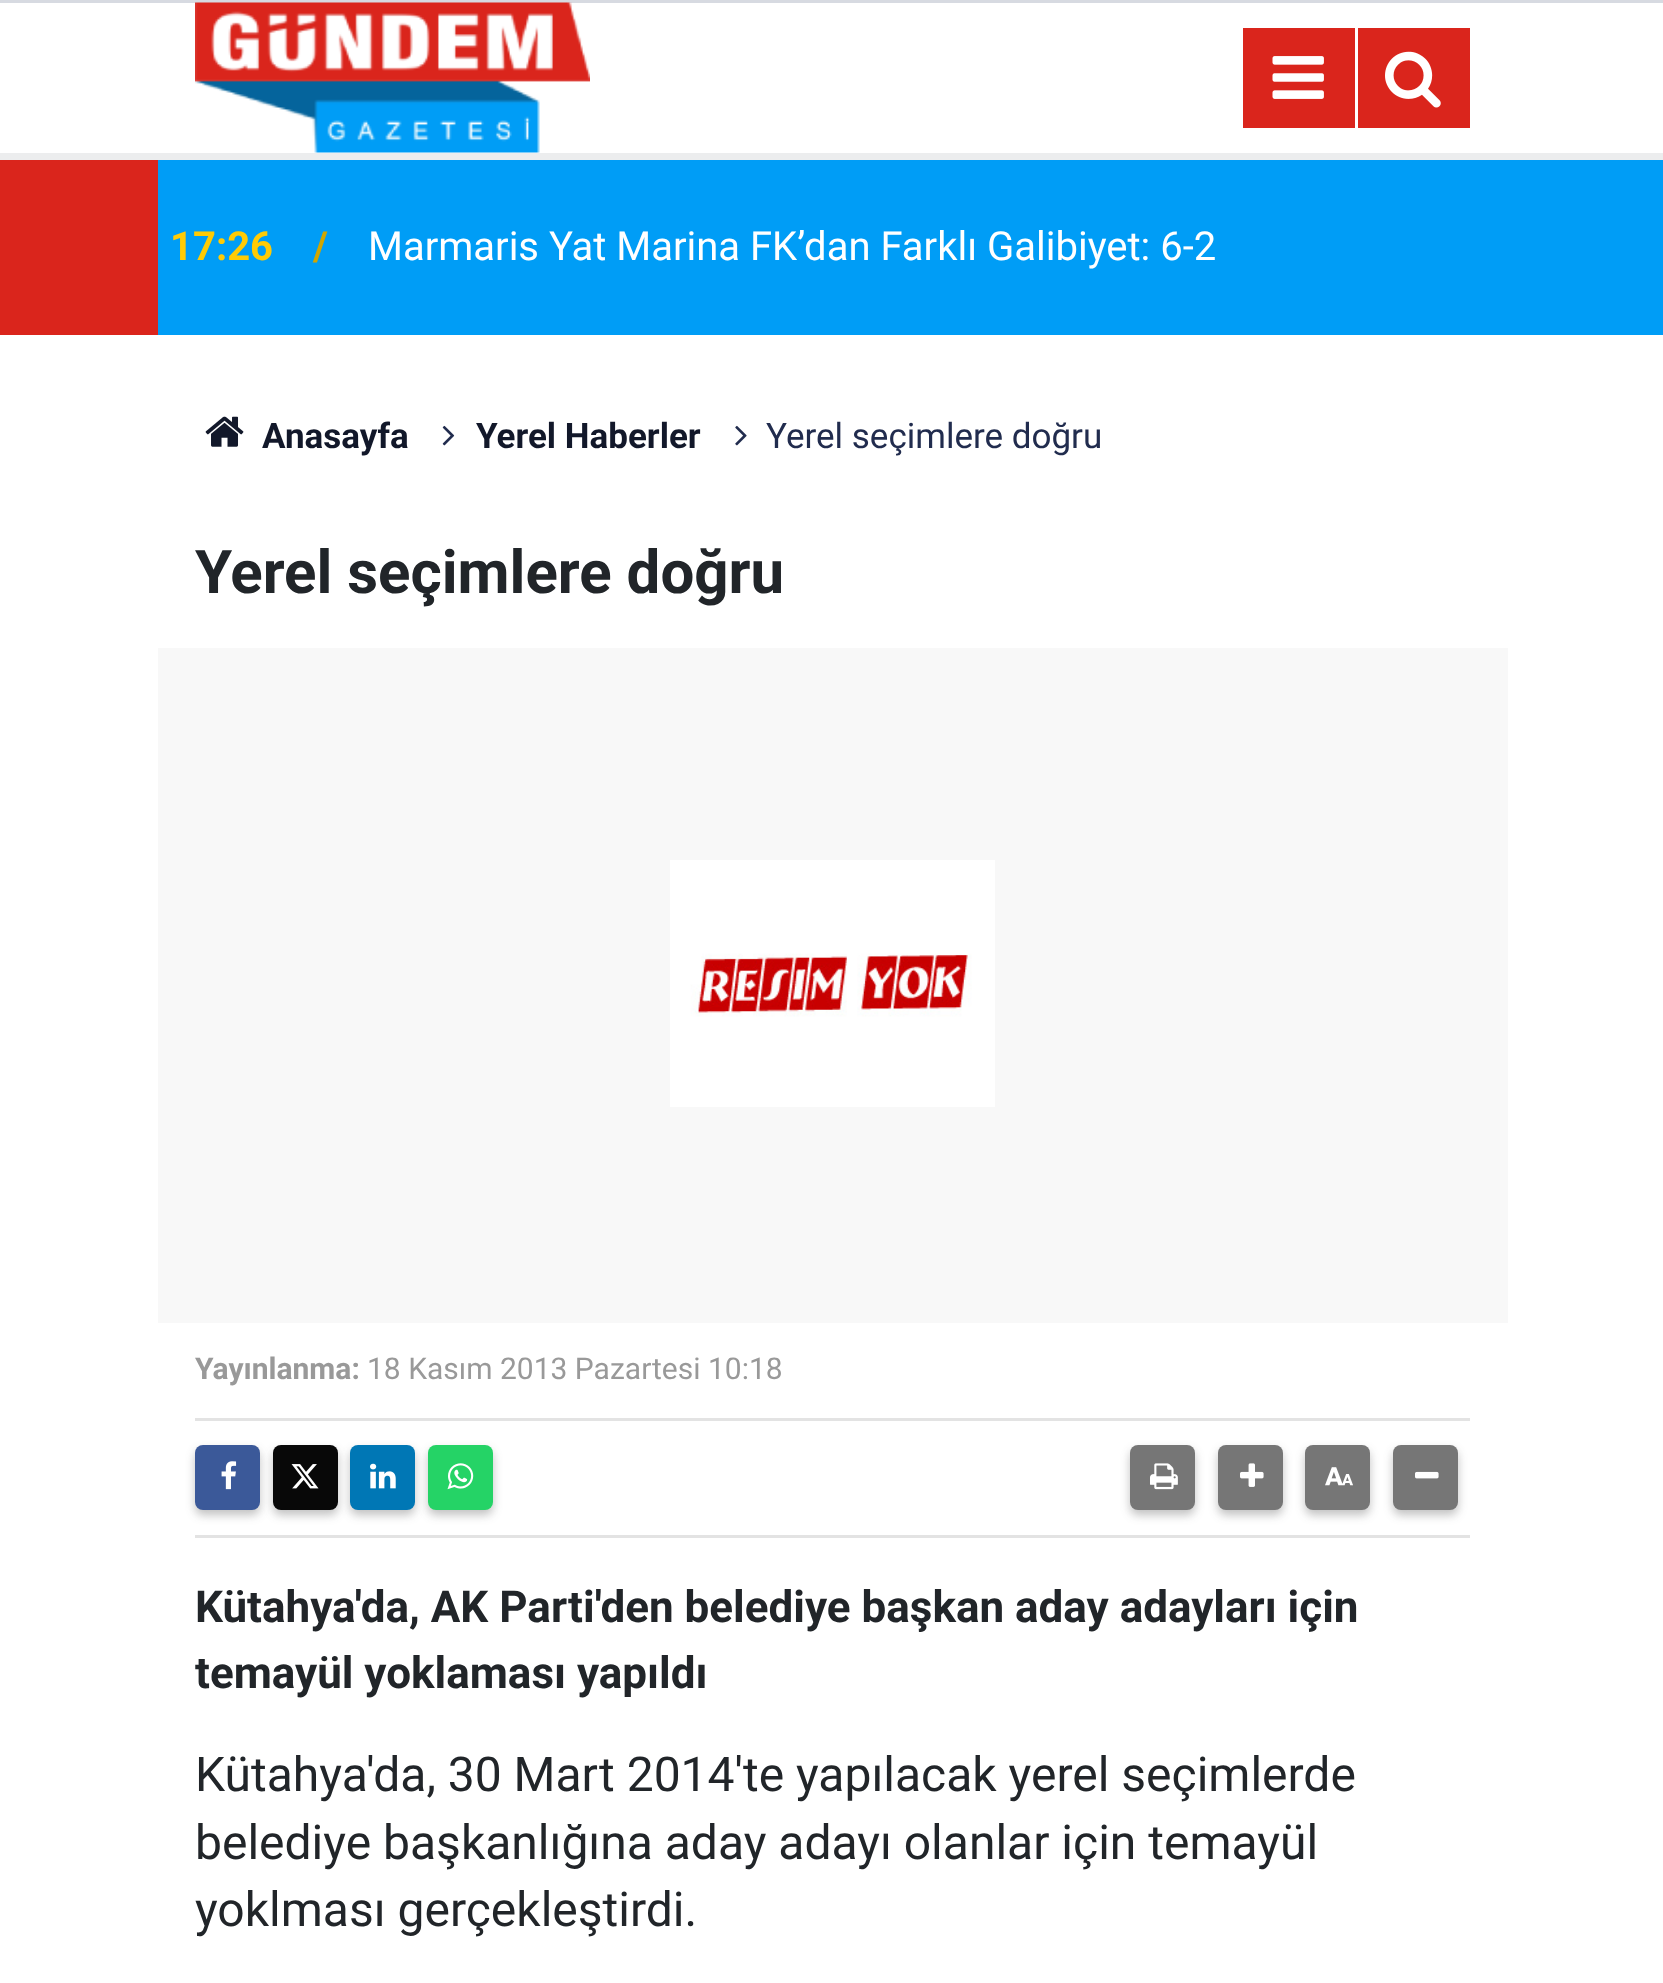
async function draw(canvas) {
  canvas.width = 1663
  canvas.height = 1983
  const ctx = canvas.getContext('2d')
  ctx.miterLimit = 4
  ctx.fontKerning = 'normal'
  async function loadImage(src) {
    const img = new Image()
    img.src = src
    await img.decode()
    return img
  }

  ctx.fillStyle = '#fff'
  ctx.fillRect(0, 0, 1663, 1983)
  ctx.fillStyle = '#d7dae1'
  ctx.fillRect(0, 0, 1663, 3)
  ctx.fillStyle = '#ecedee'
  ctx.fillRect(0, 153, 1663, 7)
  ctx.drawImage(await loadImage('image0.png'), 195, 2, 395, 151)
  ctx.fillStyle = '#da251c'
  ctx.fillRect(1243, 28, 112, 100)
  ctx.drawImage(await loadImage('image1.png'), 1272, 56, 52, 43)
  ctx.fillRect(1358, 28, 112, 100)
  ctx.drawImage(await loadImage('image2.png'), 1385, 51, 56, 57)
  ctx.fillRect(0, 160, 158, 175)
  ctx.fillStyle = '#009df6'
  ctx.fillRect(158, 160, 1505, 175)
  ctx.font = 'bold 40px Roboto'
  ctx.fillStyle = '#ffcb05'
  ctx.fillText('17:26', 170, 260)
  ctx.fillStyle = '#d1a600'
  ctx.fillText('/', 313, 260)
  ctx.font = '40px Roboto'
  ctx.fillStyle = '#fff'
  ctx.fillText('Marmaris Yat Marina FK’dan Farklı Galibiyet: 6-2', 368, 260)
  ctx.drawImage(await loadImage('image3.png'), 205, 416, 39, 31)
  ctx.font = 'bold 35px Roboto'
  ctx.fillStyle = '#12182a'
  ctx.fillText('Anasayfa', 262, 448)
  ctx.drawImage(await loadImage('image4.png'), 442, 425, 13, 21)
  ctx.fillText('Yerel Haberler', 476, 448)
  ctx.drawImage(await loadImage('image5.png'), 735, 425, 12, 21)
  ctx.font = '35px Roboto'
  ctx.fillStyle = '#212c4e'
  ctx.fillText('Yerel seçimlere doğru', 766, 448)
  ctx.font = 'bold 60px Roboto'
  ctx.fillStyle = '#212529'
  ctx.fillText('Yerel seçimlere doğru', 195, 593)
  ctx.fillStyle = '#f8f8f8'
  ctx.fillRect(158, 648, 1350, 675)
  ctx.drawImage(await loadImage('image6.png'), 670, 860, 325, 247)
  ctx.font = 'bold 30px Roboto'
  ctx.fillStyle = '#999'
  ctx.fillText('Yayınlanma:', 195, 1379)
  ctx.font = '30px Roboto'
  ctx.fillText('18 Kasım 2013 Pazartesi 10:18', 367, 1379)
  ctx.fillStyle = '#e3e3e3'
  ctx.fillRect(195, 1418, 1275, 3)
  ctx.fillRect(195, 1535, 1275, 3)
  ctx.fillStyle = '#3232324d'
  ctx.filter = 'blur(5px)'
  ctx.beginPath()
  ctx.roundRect(195, 1450, 65, 65, 8)
  ctx.fill()
  ctx.filter = 'none'
  ctx.fillStyle = '#3b5999'
  ctx.beginPath()
  ctx.roundRect(195, 1445, 65, 65, 8)
  ctx.fill()
  ctx.drawImage(await loadImage('image7.png'), 221, 1461, 16, 29)
  ctx.fillStyle = '#3232324d'
  ctx.filter = 'blur(5px)'
  ctx.beginPath()
  ctx.roundRect(273, 1450, 65, 65, 8)
  ctx.fill()
  ctx.filter = 'none'
  ctx.fillStyle = '#080808'
  ctx.beginPath()
  ctx.roundRect(273, 1445, 65, 65, 8)
  ctx.fill()
  ctx.drawImage(await loadImage('image8.png'), 291, 1464, 28, 25)
  ctx.fillStyle = '#3232324d'
  ctx.filter = 'blur(5px)'
  ctx.beginPath()
  ctx.roundRect(350, 1450, 65, 65, 8)
  ctx.fill()
  ctx.filter = 'none'
  ctx.fillStyle = '#0077b5'
  ctx.beginPath()
  ctx.roundRect(350, 1445, 65, 65, 8)
  ctx.fill()
  ctx.drawImage(await loadImage('image9.png'), 370, 1463, 26, 26)
  ctx.fillStyle = '#3232324d'
  ctx.filter = 'blur(5px)'
  ctx.beginPath()
  ctx.roundRect(428, 1450, 65, 65, 8)
  ctx.fill()
  ctx.filter = 'none'
  ctx.fillStyle = '#25d366'
  ctx.beginPath()
  ctx.roundRect(428, 1445, 65, 65, 8)
  ctx.fill()
  ctx.drawImage(await loadImage('image10.png'), 447, 1463, 27, 27)
  ctx.fillStyle = '#3232324d'
  ctx.filter = 'blur(5px)'
  ctx.beginPath()
  ctx.roundRect(1130, 1450, 65, 65, 8)
  ctx.fill()
  ctx.filter = 'none'
  ctx.fillStyle = '#767676'
  ctx.beginPath()
  ctx.roundRect(1130, 1445, 65, 65, 8)
  ctx.fill()
  ctx.drawImage(await loadImage('image11.png'), 1150, 1463, 28, 27)
  ctx.fillStyle = '#3232324d'
  ctx.filter = 'blur(5px)'
  ctx.beginPath()
  ctx.roundRect(1218, 1450, 65, 65, 8)
  ctx.fill()
  ctx.filter = 'none'
  ctx.fillStyle = '#767676'
  ctx.beginPath()
  ctx.roundRect(1218, 1445, 65, 65, 8)
  ctx.fill()
  ctx.drawImage(await loadImage('image12.png'), 1240, 1463, 24, 24)
  ctx.fillStyle = '#3232324d'
  ctx.filter = 'blur(5px)'
  ctx.beginPath()
  ctx.roundRect(1305, 1450, 65, 65, 8)
  ctx.fill()
  ctx.filter = 'none'
  ctx.fillStyle = '#767676'
  ctx.beginPath()
  ctx.roundRect(1305, 1445, 65, 65, 8)
  ctx.fill()
  ctx.drawImage(await loadImage('image13.png'), 1325, 1467, 28, 19)
  ctx.fillStyle = '#3232324d'
  ctx.filter = 'blur(5px)'
  ctx.beginPath()
  ctx.roundRect(1393, 1450, 65, 65, 8)
  ctx.fill()
  ctx.filter = 'none'
  ctx.fillStyle = '#767676'
  ctx.beginPath()
  ctx.roundRect(1393, 1445, 65, 65, 8)
  ctx.fill()
  ctx.drawImage(await loadImage('image14.png'), 1415, 1471, 24, 8)
  ctx.font = 'bold 44px Roboto'
  ctx.fillStyle = '#212529'
  ctx.fillText('Kütahya\'da, AK Parti\'den belediye başkan aday adayları için', 195, 1622)
  ctx.fillText('temayül yoklaması yapıldı', 195, 1688)
  ctx.font = '48px Roboto'
  ctx.fillText('Kütahya\'da, 30 Mart 2014\'te yapılacak yerel seçimlerde', 195, 1791)
  ctx.fillText('belediye başkanlığına aday adayı olanlar için temayül', 195, 1859)
  ctx.fillText('yoklması gerçekleştirdi.', 195, 1926)
}

draw(document.querySelector('canvas'))
